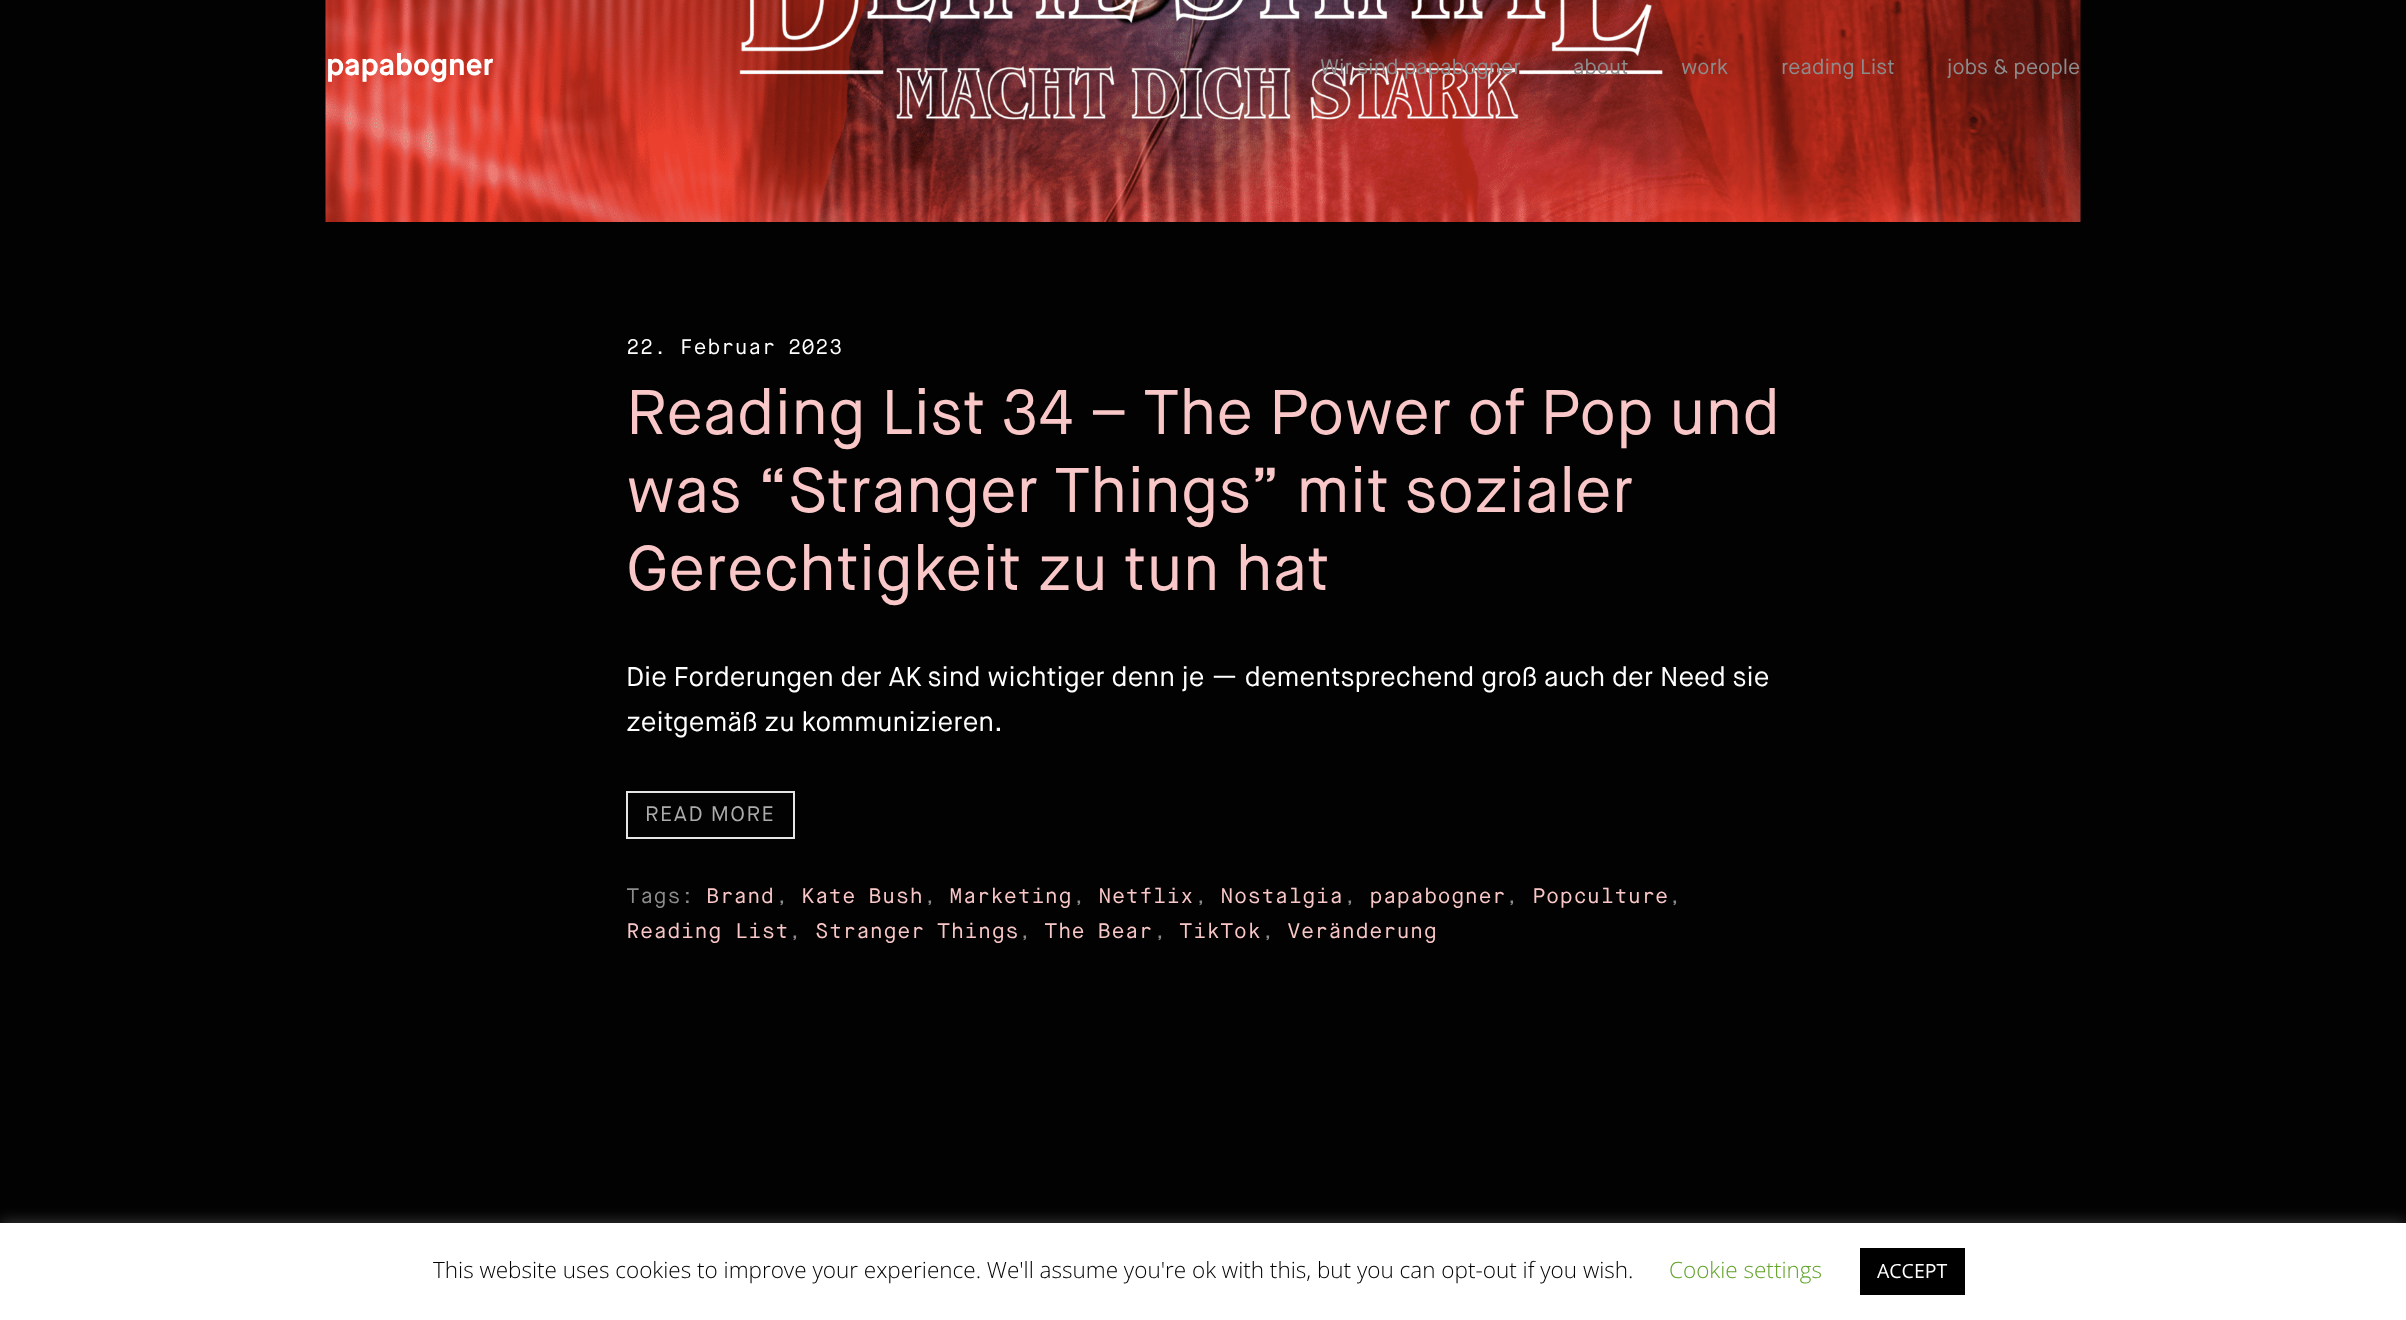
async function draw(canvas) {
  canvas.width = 2406
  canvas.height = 1320
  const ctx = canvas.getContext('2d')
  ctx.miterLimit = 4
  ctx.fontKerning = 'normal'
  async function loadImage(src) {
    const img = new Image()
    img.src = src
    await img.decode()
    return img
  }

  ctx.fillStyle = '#020202'
  ctx.fillRect(0, 0, 2406, 1320)
  ctx.drawImage(await loadImage('image0.png'), 325, 0, 1756, 222)
  ctx.font = 'bold 30px Maison Neue'
  ctx.fillStyle = '#fff'
  ctx.fillText('papabogner', 326, 75)
  ctx.font = '21px "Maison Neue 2"'
  ctx.fillStyle = '#8c8c8c'
  ctx.fillText('Wir sind papabogner', 1320, 74)
  ctx.fillText('about', 1573, 74)
  ctx.fillText('work', 1681, 74)
  ctx.fillText('reading List', 1781, 74)
  ctx.fillText('jobs & people', 1947, 74)
  ctx.font = '21px Maison Neue'
  ctx.fillStyle = '#fff'
  ctx.fillText('22. Februar 2023', 626, 354)
  ctx.font = '63px "Maison Neue 2"'
  ctx.fillStyle = '#f9c7c7'
  ctx.fillText('Reading List 34 – The Power of Pop und', 626, 434)
  ctx.fillText('was “Stranger Things” mit sozialer', 626, 512)
  ctx.fillText('Gerechtigkeit zu tun hat', 626, 590)
  ctx.font = '27px "Maison Neue 2"'
  ctx.fillStyle = '#fff'
  ctx.fillText('Die Forderungen der AK sind wichtiger denn je — dementsprechend groß auch der Need sie', 626, 686)
  ctx.fillText('zeitgemäß zu kommunizieren.', 626, 731)
  ctx.strokeStyle = '#e6e6e6'
  ctx.lineWidth = 2
  ctx.strokeRect(627, 792, 167, 46)
  ctx.letterSpacing = '1.5px'
  ctx.font = '21px "Maison Neue 2"'
  ctx.fillStyle = '#acacac'
  ctx.fillText('READ MORE', 645, 821)
  ctx.letterSpacing = '0px'
  ctx.font = '21px Maison Neue'
  ctx.fillStyle = '#8c8c8c'
  ctx.fillText('Tags:', 626, 903)
  ctx.fillStyle = '#f9c7c7'
  ctx.fillText('Brand', 706, 903)
  ctx.fillStyle = '#8c8c8c'
  ctx.fillText(',', 775, 903)
  ctx.fillStyle = '#f9c7c7'
  ctx.fillText('Kate Bush', 801, 903)
  ctx.fillStyle = '#8c8c8c'
  ctx.fillText(',', 923, 903)
  ctx.fillStyle = '#f9c7c7'
  ctx.fillText('Marketing', 949, 903)
  ctx.fillStyle = '#8c8c8c'
  ctx.fillText(',', 1072, 903)
  ctx.fillStyle = '#f9c7c7'
  ctx.fillText('Netflix', 1098, 903)
  ctx.fillStyle = '#8c8c8c'
  ctx.fillText(',', 1194, 903)
  ctx.fillStyle = '#f9c7c7'
  ctx.fillText('Nostalgia', 1220, 903)
  ctx.fillStyle = '#8c8c8c'
  ctx.fillText(',', 1343, 903)
  ctx.fillStyle = '#f9c7c7'
  ctx.fillText('papabogner', 1369, 903)
  ctx.fillStyle = '#8c8c8c'
  ctx.fillText(',', 1505, 903)
  ctx.fillStyle = '#f9c7c7'
  ctx.fillText('Popculture', 1532, 903)
  ctx.fillStyle = '#8c8c8c'
  ctx.fillText(',', 1668, 903)
  ctx.fillStyle = '#f9c7c7'
  ctx.fillText('Reading List', 626, 938)
  ctx.fillStyle = '#8c8c8c'
  ctx.fillText(',', 788, 938)
  ctx.fillStyle = '#f9c7c7'
  ctx.fillText('Stranger Things', 815, 938)
  ctx.fillStyle = '#8c8c8c'
  ctx.fillText(',', 1018, 938)
  ctx.fillStyle = '#f9c7c7'
  ctx.fillText('The Bear', 1044, 938)
  ctx.fillStyle = '#8c8c8c'
  ctx.fillText(',', 1153, 938)
  ctx.fillStyle = '#f9c7c7'
  ctx.fillText('TikTok', 1179, 938)
  ctx.fillStyle = '#8c8c8c'
  ctx.fillText(',', 1261, 938)
  ctx.fillStyle = '#f9c7c7'
  ctx.fillText('Veränderung', 1287, 938)
  ctx.fillStyle = '#acabab4d'
  ctx.filter = 'blur(7.5px)'
  ctx.beginPath()
  ctx.rect(0, 1221, 2406, 98)
  ctx.fill()
  ctx.filter = 'none'
  ctx.fillStyle = '#fff'
  ctx.fillRect(0, 1223, 2406, 97)
  ctx.font = '300 22.5px Open Sans'
  ctx.fillStyle = '#000'
  ctx.fillText('This website uses cookies to improve your experience. We\'ll assume you\'re ok with this, but you can opt-out if you wish.', 433, 1278)
  ctx.fillStyle = '#62a329'
  ctx.fillText('Cookie settings', 1669, 1278)
  ctx.fillStyle = '#000'
  ctx.fillRect(1860, 1248, 105, 47)
  ctx.font = '19.5px Open Sans'
  ctx.fillStyle = '#fff'
  ctx.fillText('ACCEPT', 1877, 1278)
}

draw(document.querySelector('canvas'))
